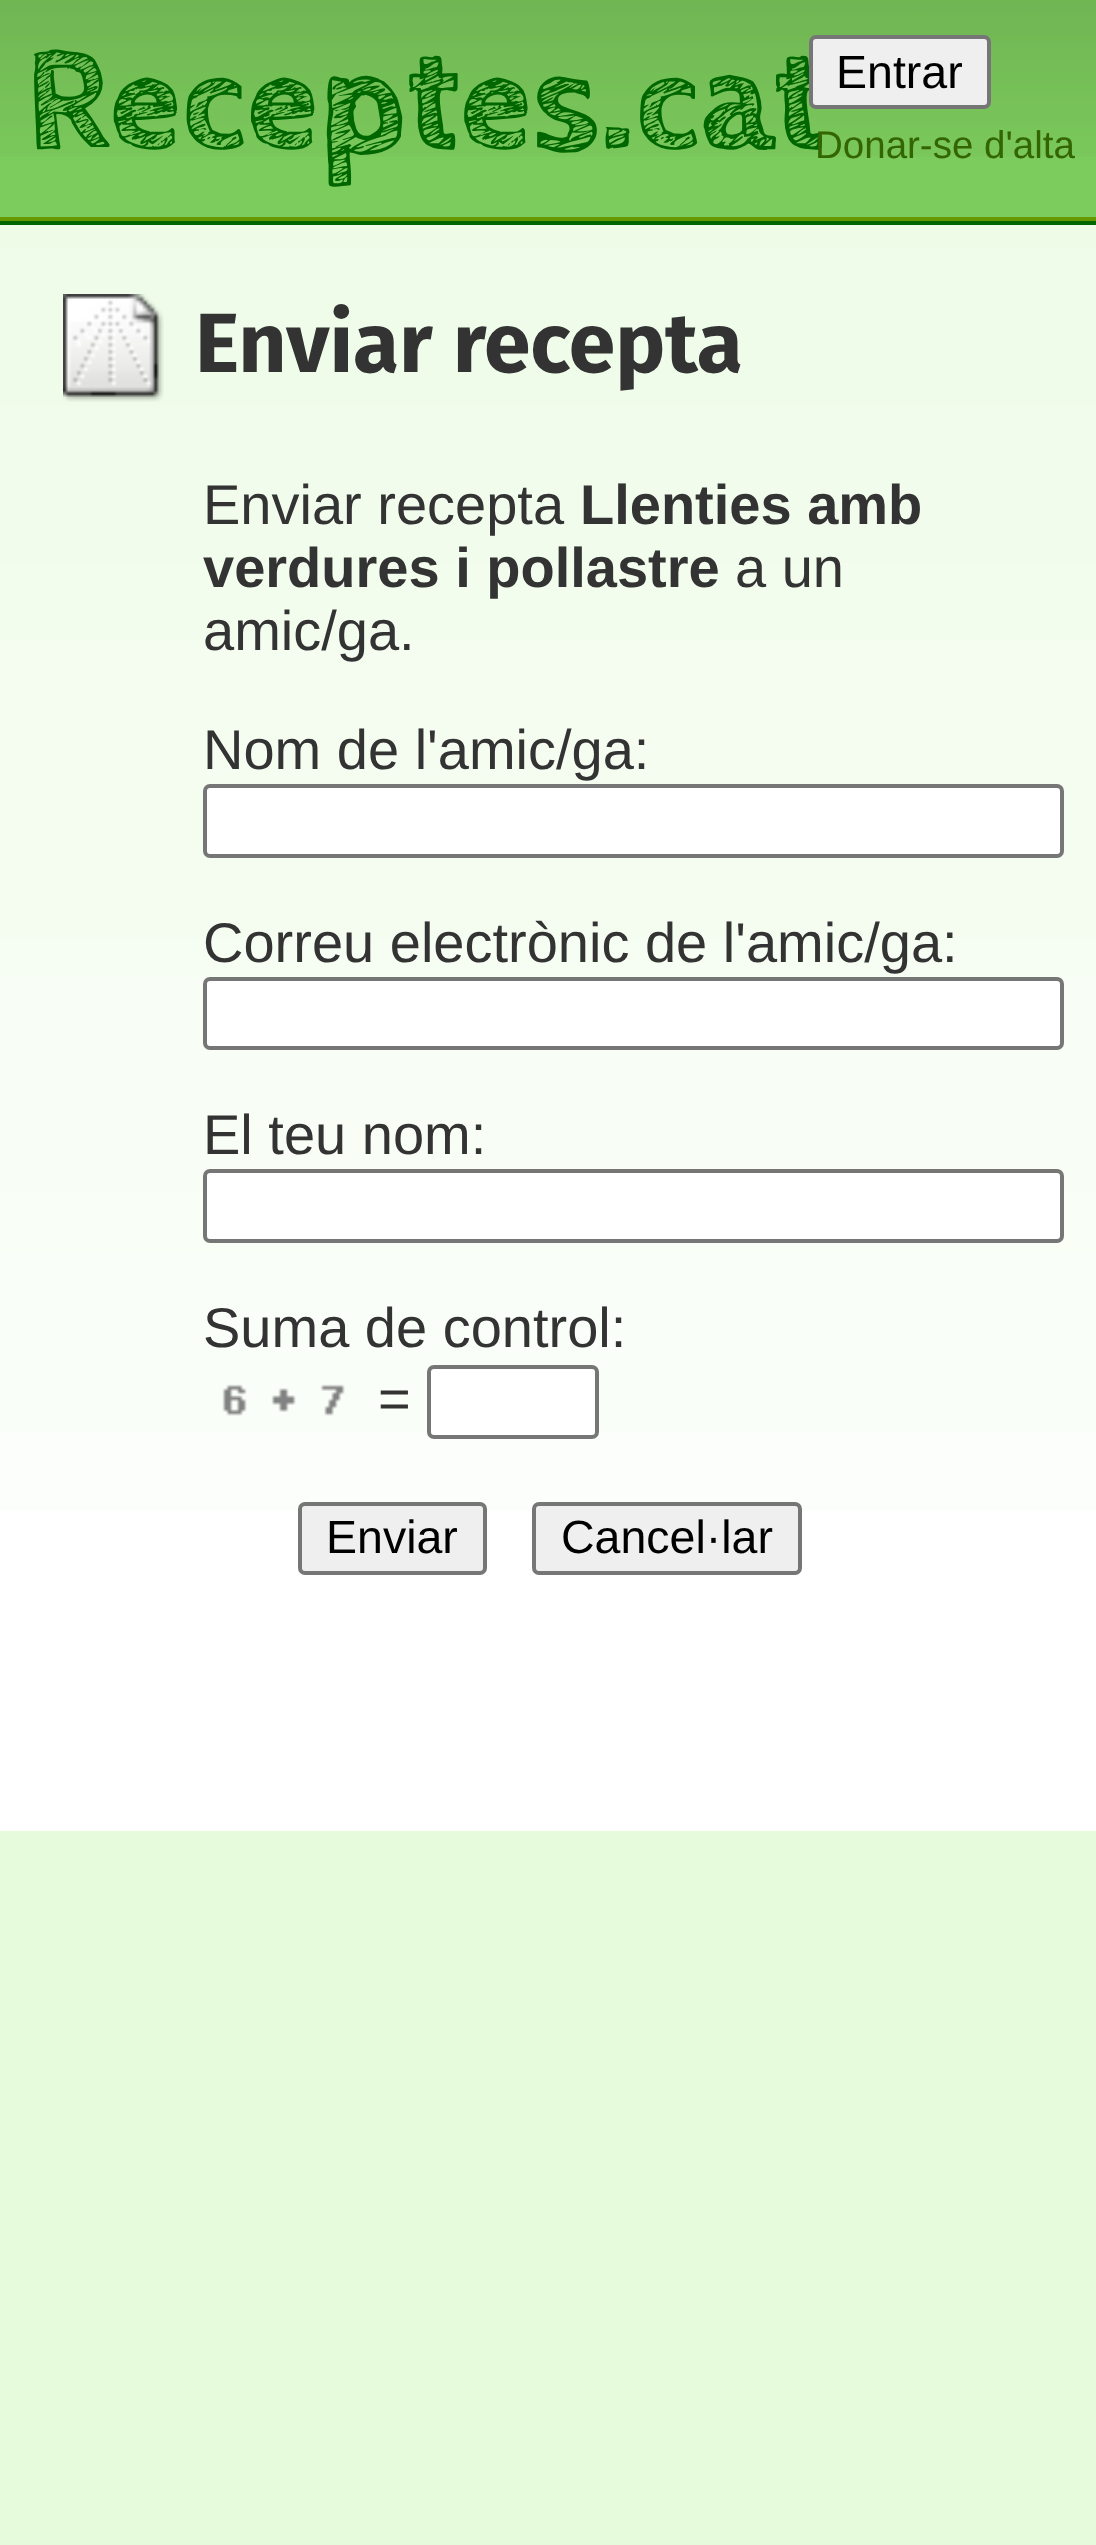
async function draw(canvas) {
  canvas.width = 1096
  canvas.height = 2545
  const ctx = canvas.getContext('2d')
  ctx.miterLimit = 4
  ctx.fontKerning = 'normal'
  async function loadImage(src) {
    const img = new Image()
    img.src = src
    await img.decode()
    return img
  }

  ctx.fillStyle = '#e6fadc'
  ctx.fillRect(0, 0, 1096, 2545)
  ctx.fillStyle = '#fff'
  ctx.fillRect(0, 1511, 1096, 320)
  ctx.drawImage(await loadImage('image0.png'), 0, 225, 1096, 1286)
  ctx.fillStyle = '#7ccc5d'
  ctx.fillRect(0, 157, 1096, 60)
  ctx.drawImage(await loadImage('image1.png'), 0, 0, 1096, 157)
  ctx.fillStyle = '#690'
  ctx.fillRect(0, 217, 1096, 4)
  ctx.font = 'bold 147px Cabin Sketch'
  ctx.fillStyle = '#060'
  ctx.fillText('Receptes.cat', 25, 147)
  ctx.fillStyle = '#efefef'
  ctx.beginPath()
  ctx.roundRect(811, 37, 178, 70, 5)
  ctx.fill()
  ctx.strokeStyle = '#767676'
  ctx.lineWidth = 4
  ctx.stroke()
  ctx.font = '46.5px Liberation Sans'
  ctx.fillStyle = '#000'
  ctx.fillText('Entrar', 836, 88)
  ctx.font = '38.5px Liberation Sans'
  ctx.fillStyle = '#360'
  ctx.fillText('Donar-se d\'alta', 815, 158)
  ctx.fillStyle = '#060'
  ctx.fillRect(0, 221, 1096, 4)
  ctx.drawImage(await loadImage('image2.png'), 63, 294, 101, 108)
  ctx.font = 'bold 84px Fira Sans'
  ctx.fillStyle = '#333'
  ctx.fillText('Enviar recepta', 195, 372)
  ctx.font = '56px Liberation Sans'
  ctx.fillText('Enviar recepta', 203, 524)
  ctx.font = 'bold 56px Liberation Sans'
  ctx.fillText('Llenties amb', 580, 524)
  ctx.fillText('verdures i pollastre', 203, 587)
  ctx.font = '56px Liberation Sans'
  ctx.fillText('a un', 735, 587)
  ctx.fillText('amic/ga.', 203, 650)
  ctx.fillText('Nom de l\'amic/ga:', 203, 769)
  ctx.fillStyle = '#fff'
  ctx.beginPath()
  ctx.roundRect(205, 786, 857, 70, 5)
  ctx.fill()
  ctx.stroke()
  ctx.fillStyle = '#333'
  ctx.fillText('Correu electrònic de l\'amic/ga:', 203, 962)
  ctx.fillStyle = '#fff'
  ctx.beginPath()
  ctx.roundRect(205, 979, 857, 69, 5)
  ctx.fill()
  ctx.stroke()
  ctx.fillStyle = '#333'
  ctx.fillText('El teu nom:', 203, 1154)
  ctx.fillStyle = '#fff'
  ctx.beginPath()
  ctx.roundRect(205, 1171, 857, 70, 5)
  ctx.fill()
  ctx.stroke()
  ctx.fillStyle = '#333'
  ctx.fillText('Suma de control:', 203, 1347)
  ctx.drawImage(await loadImage('image3.png'), 222, 1384, 123, 32)
  ctx.fillText('=', 378, 1418)
  ctx.fillStyle = '#fff'
  ctx.beginPath()
  ctx.roundRect(429, 1367, 168, 70, 5)
  ctx.fill()
  ctx.stroke()
  ctx.fillStyle = '#efefef'
  ctx.beginPath()
  ctx.roundRect(300, 1504, 185, 69, 5)
  ctx.fill()
  ctx.stroke()
  ctx.font = '46.5px Liberation Sans'
  ctx.fillStyle = '#000'
  ctx.fillText('Enviar', 326, 1553)
  ctx.fillStyle = '#efefef'
  ctx.beginPath()
  ctx.roundRect(534, 1504, 266, 69, 5)
  ctx.fill()
  ctx.stroke()
  ctx.fillStyle = '#000'
  ctx.fillText('Cancel·lar', 561, 1553)
}

draw(document.querySelector('canvas'))
